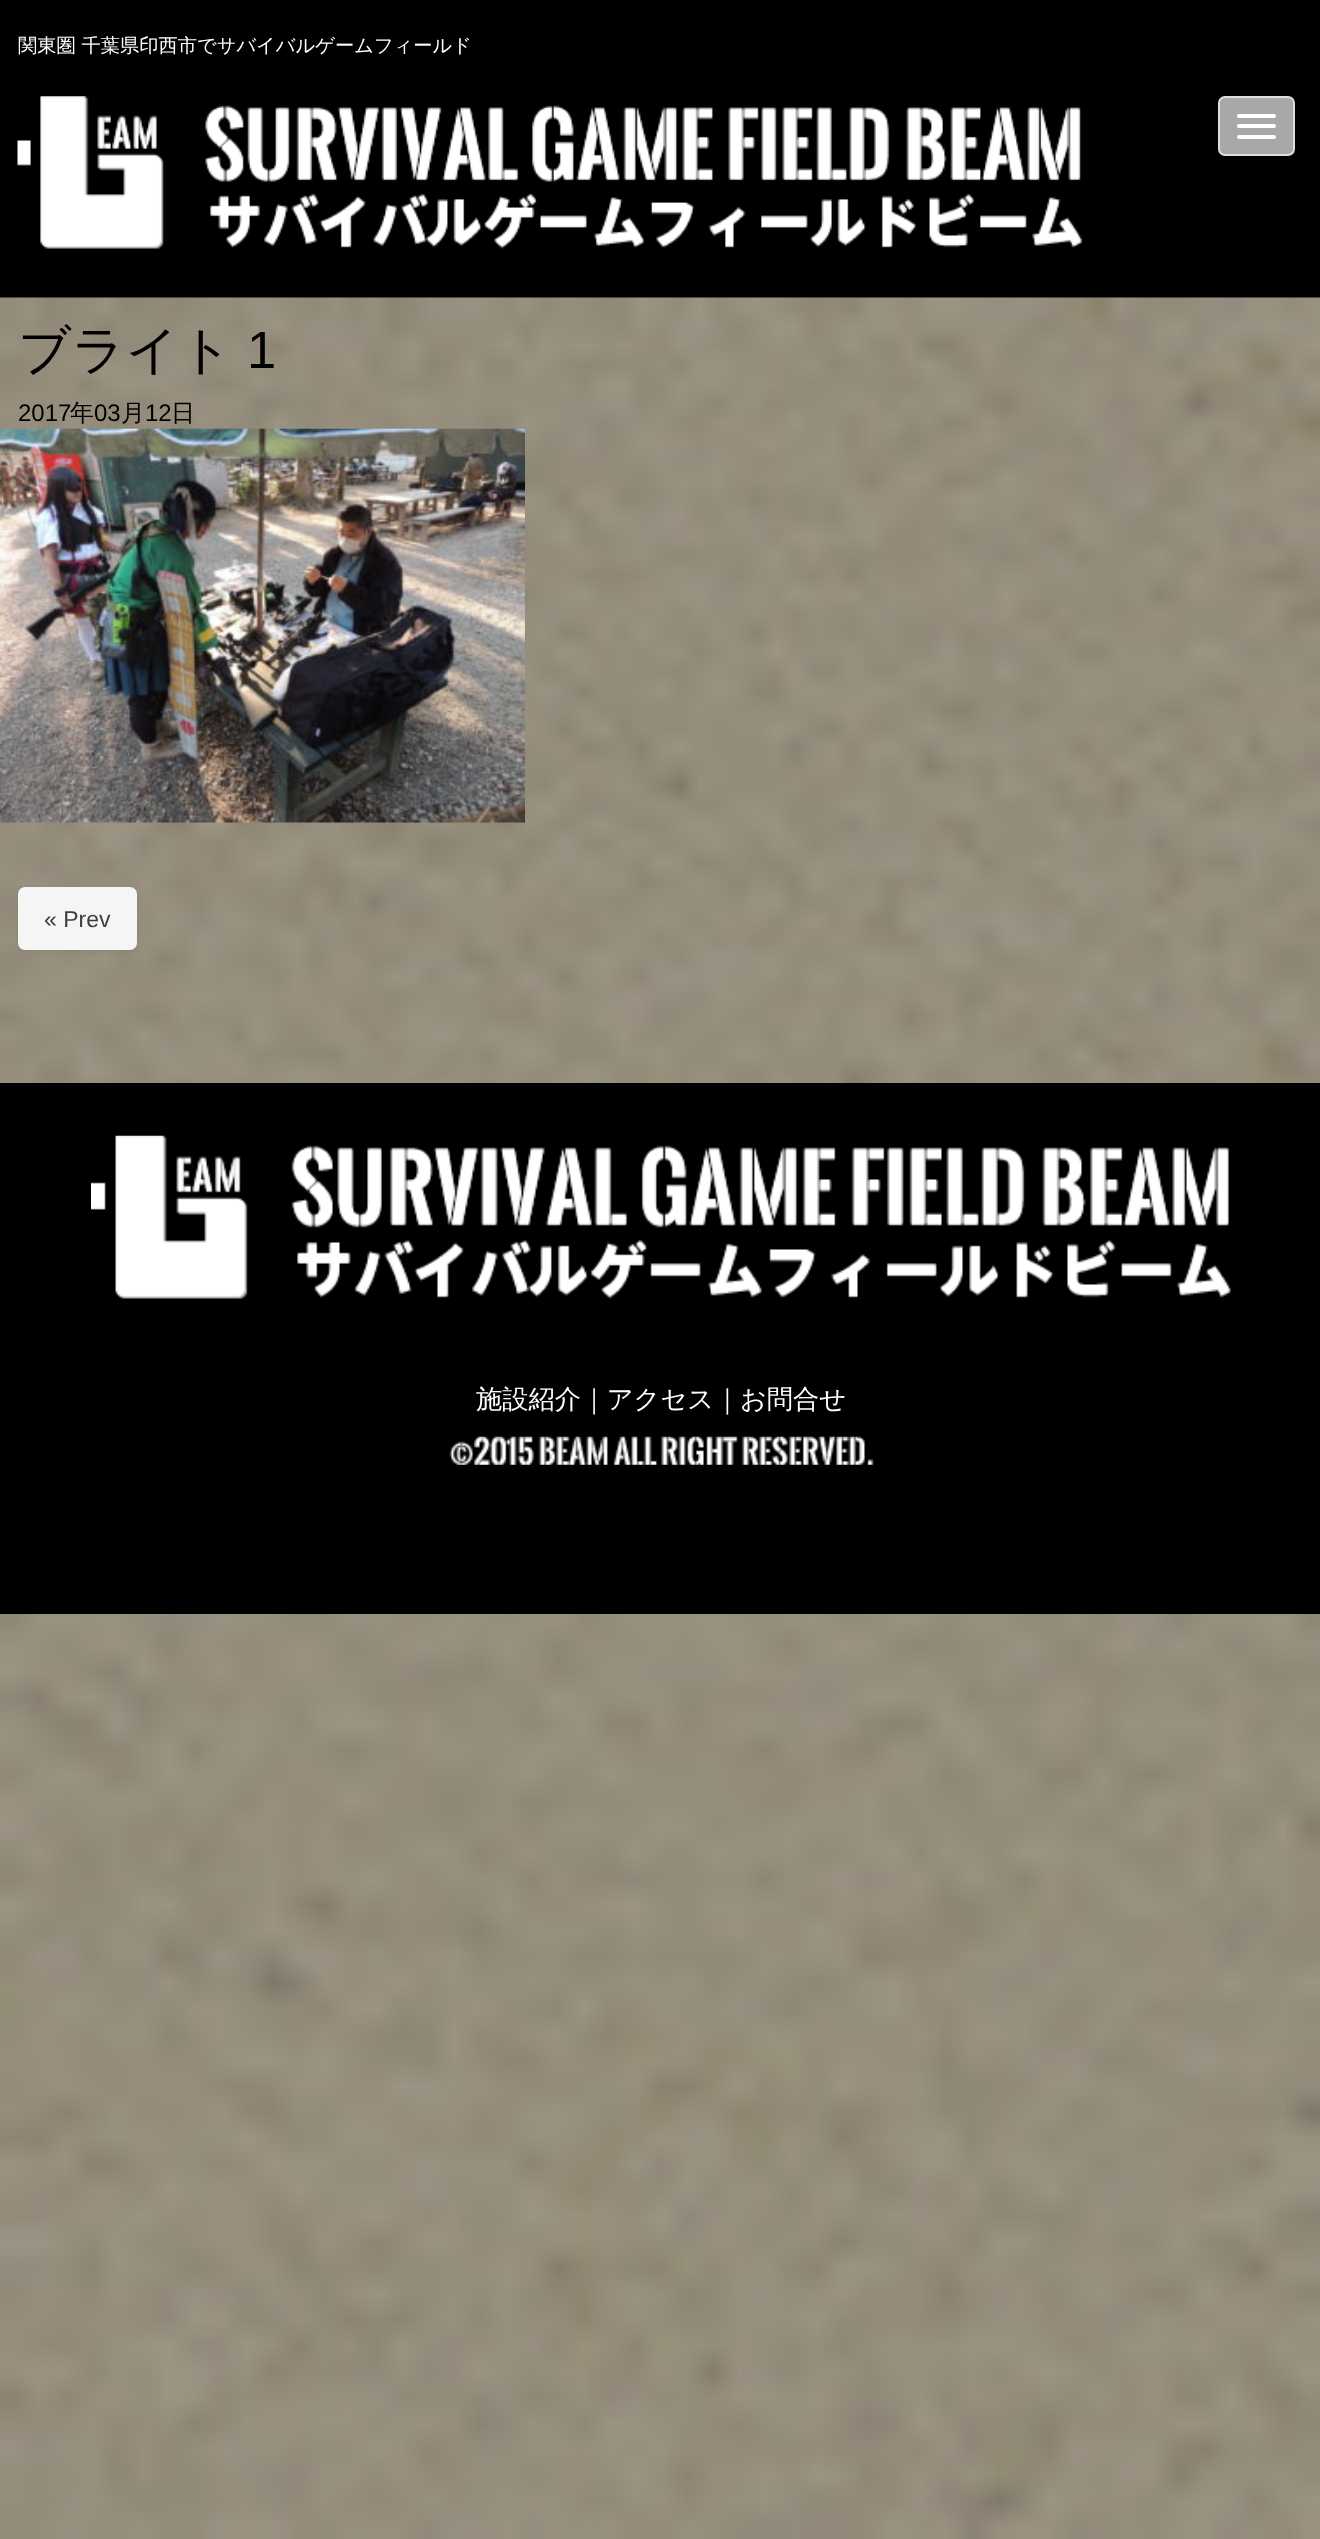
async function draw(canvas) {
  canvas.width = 1320
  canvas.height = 2539
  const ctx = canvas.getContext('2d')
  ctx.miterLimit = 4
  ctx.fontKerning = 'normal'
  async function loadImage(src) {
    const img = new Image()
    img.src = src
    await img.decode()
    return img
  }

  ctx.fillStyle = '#fff'
  ctx.fillRect(0, 0, 1320, 2539)
  ctx.drawImage(await loadImage('image0.png'), 0, 1614, 1320, 925)
  ctx.fillStyle = '#000'
  ctx.fillRect(0, 0, 1320, 298)
  ctx.font = '500 19.25px WenQuanYi Zen Hei'
  ctx.fillStyle = '#fff'
  ctx.fillText('関東圏 千葉県印西市でサバイバルゲームフィールド', 18, 52)
  ctx.drawImage(await loadImage('image1.png'), 17, 96, 1065, 153)
  ctx.fillStyle = '#a8a8a8'
  ctx.beginPath()
  ctx.roundRect(1219, 97, 75, 58, 6)
  ctx.fill()
  ctx.strokeStyle = '#dedede'
  ctx.lineWidth = 2
  ctx.stroke()
  ctx.fillStyle = '#fff'
  ctx.beginPath()
  ctx.roundRect(1237, 114, 39, 4, 2)
  ctx.fill()
  ctx.beginPath()
  ctx.roundRect(1237, 124, 39, 4, 2)
  ctx.fill()
  ctx.beginPath()
  ctx.roundRect(1237, 135, 39, 4, 2)
  ctx.fill()
  ctx.drawImage(await loadImage('image2.png'), 0, 297, 1320, 786)
  ctx.font = '500 52.5px WenQuanYi Zen Hei'
  ctx.fillStyle = '#000'
  ctx.fillText('ブライト', 18, 368)
  ctx.font = '52.5px Liberation Sans'
  ctx.fillText('1', 247, 368)
  ctx.font = '24px Liberation Sans'
  ctx.fillText('2017', 18, 421)
  ctx.font = '500 24px WenQuanYi Zen Hei'
  ctx.fillText('年', 70, 421)
  ctx.font = '24px Liberation Sans'
  ctx.fillText('03', 94, 421)
  ctx.font = '500 24px WenQuanYi Zen Hei'
  ctx.fillText('月', 121, 421)
  ctx.font = '24px Liberation Sans'
  ctx.fillText('12', 145, 421)
  ctx.font = '500 24px WenQuanYi Zen Hei'
  ctx.fillText('日', 171, 421)
  ctx.drawImage(await loadImage('image3.png'), 0, 428, 525, 395)
  ctx.fillStyle = '#3232321a'
  ctx.filter = 'blur(2px)'
  ctx.beginPath()
  ctx.roundRect(18, 889, 119, 63, 7)
  ctx.fill()
  ctx.filter = 'none'
  ctx.fillStyle = '#f5f5f5'
  ctx.beginPath()
  ctx.roundRect(18, 887, 119, 63, 7)
  ctx.fill()
  ctx.font = '23px Liberation Sans'
  ctx.fillStyle = '#3c3c3c'
  ctx.fillText('« Prev', 44, 927)
  ctx.fillStyle = '#000'
  ctx.fillRect(0, 1083, 1320, 531)
  ctx.drawImage(await loadImage('image4.png'), 91, 1135, 1140, 164)
  ctx.font = '500 26.25px WenQuanYi Zen Hei'
  ctx.fillStyle = '#fff'
  ctx.fillText('施設紹介｜アクセス｜お問合せ', 476, 1408)
  ctx.drawImage(await loadImage('image5.png'), 449, 1436, 425, 29)
}

draw(document.querySelector('canvas'))
